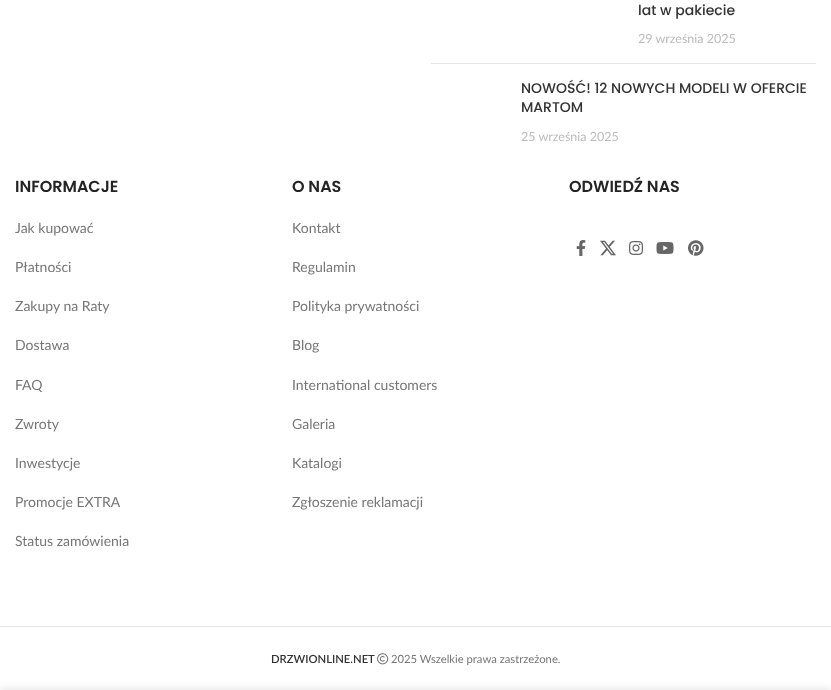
async function draw(canvas) {
  canvas.width = 831
  canvas.height = 690
  const ctx = canvas.getContext('2d')
  ctx.miterLimit = 4
  ctx.fontKerning = 'normal'
  async function loadImage(src) {
    const img = new Image()
    img.src = src
    await img.decode()
    return img
  }

  ctx.fillStyle = '#fff'
  ctx.fillRect(0, 0, 831, 690)
  ctx.fillStyle = '#e4e4e4'
  ctx.fillRect(431, 63, 385, 1)
  ctx.font = '500 14px Poppins'
  ctx.fillStyle = '#333'
  ctx.fillText('lat w pakiecie', 638, 15)
  ctx.font = '12.5px Lato'
  ctx.fillStyle = '#bbb'
  ctx.fillText('29 września 2025', 638, 43)
  ctx.font = '500 14px Poppins'
  ctx.fillStyle = '#333'
  ctx.fillText('NOWOŚĆ! 12 NOWYCH MODELI W OFERCIE', 521, 93)
  ctx.fillText('MARTOM', 521, 112)
  ctx.font = '12.5px Lato'
  ctx.fillStyle = '#bbb'
  ctx.fillText('25 września 2025', 521, 141)
  ctx.font = '600 16px Poppins'
  ctx.fillStyle = '#242424'
  ctx.fillText('INFORMACJE', 15, 192)
  ctx.font = '14px Lato'
  ctx.fillStyle = '#767676'
  ctx.fillText('Jak kupować', 15, 233)
  ctx.fillText('Płatności', 15, 272)
  ctx.fillText('Zakupy na Raty', 15, 311)
  ctx.fillText('Dostawa', 15, 350)
  ctx.fillText('FAQ', 15, 390)
  ctx.fillText('Zwroty', 15, 429)
  ctx.fillText('Inwestycje', 15, 468)
  ctx.fillText('Promocje EXTRA', 15, 507)
  ctx.fillText('Status zamówienia', 15, 546)
  ctx.font = '600 16px Poppins'
  ctx.fillStyle = '#242424'
  ctx.fillText('O NAS', 292, 192)
  ctx.font = '14px Lato'
  ctx.fillStyle = '#767676'
  ctx.fillText('Kontakt', 292, 233)
  ctx.fillText('Regulamin', 292, 272)
  ctx.fillText('Polityka prywatności', 292, 311)
  ctx.fillText('Blog', 292, 350)
  ctx.fillText('International customers', 292, 390)
  ctx.fillText('Galeria', 292, 429)
  ctx.fillText('Katalogi', 292, 468)
  ctx.fillText('Zgłoszenie reklamacji', 292, 507)
  ctx.font = '600 16px Poppins'
  ctx.fillStyle = '#242424'
  ctx.fillText('ODWIEDŹ NAS', 569, 192)
  ctx.drawImage(await loadImage('image0.png'), 576, 240, 10, 16)
  ctx.drawImage(await loadImage('image1.png'), 600, 240, 16, 16)
  ctx.drawImage(await loadImage('image2.png'), 629, 241, 14, 14)
  ctx.drawImage(await loadImage('image3.png'), 656, 242, 18, 12)
  ctx.drawImage(await loadImage('image4.png'), 688, 240, 16, 16)
  ctx.fillStyle = '#e4e4e4'
  ctx.fillRect(0, 626, 831, 1)
  ctx.font = '600 11.25px Lato'
  ctx.fillStyle = '#333'
  ctx.fillText('DRZWIONLINE.NET', 271, 663)
  ctx.drawImage(await loadImage('image5.png'), 377, 653, 12, 12)
  ctx.font = '11.25px Lato'
  ctx.fillStyle = '#767676'
  ctx.fillText('2025 Wszelkie prawa zastrzeżone.', 391, 663)
  ctx.fillStyle = '#00000024'
  ctx.filter = 'blur(4.5px)'
  ctx.beginPath()
  ctx.rect(0, 690, 831, 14)
  ctx.fill()
  ctx.filter = 'none'
}

draw(document.querySelector('canvas'))
